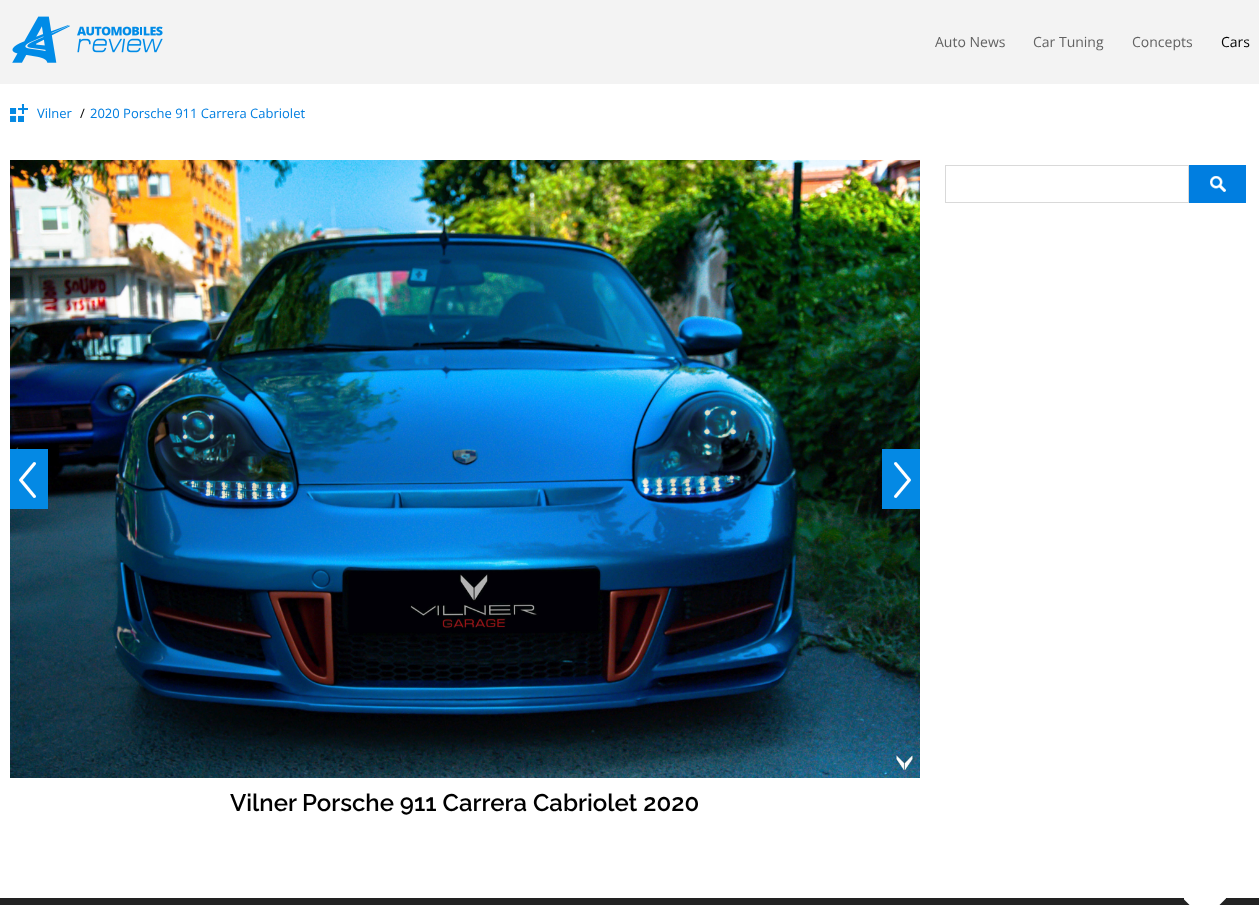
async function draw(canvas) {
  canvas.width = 1259
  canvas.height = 905
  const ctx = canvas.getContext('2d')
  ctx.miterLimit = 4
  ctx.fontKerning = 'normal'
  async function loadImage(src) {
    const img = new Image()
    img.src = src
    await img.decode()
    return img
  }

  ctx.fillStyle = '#fff'
  ctx.fillRect(0, 0, 1259, 905)
  ctx.fillStyle = '#f3f3f3'
  ctx.fillRect(0, 0, 1259, 84)
  ctx.drawImage(await loadImage('image0.png'), 12, 16, 151, 47)
  ctx.font = '14px Open Sans'
  ctx.fillStyle = '#626262'
  ctx.fillText('Auto News', 935, 47)
  ctx.fillText('Car Tuning', 1033, 47)
  ctx.fillText('Concepts', 1132, 47)
  ctx.fillStyle = '#000'
  ctx.fillText('Cars', 1221, 47)
  ctx.drawImage(await loadImage('image1.png'), 10, 104, 18, 18)
  ctx.font = '13px Open Sans'
  ctx.fillStyle = '#007ee0'
  ctx.fillText('Vilner', 37, 118)
  ctx.fillStyle = '#000'
  ctx.fillText('/', 80, 118)
  ctx.fillStyle = '#007ee0'
  ctx.fillText('2020 Porsche 911 Carrera Cabriolet', 90, 118)
  ctx.strokeStyle = '#d9d9d9'
  ctx.strokeRect(945.5, 165.5, 243, 37)
  ctx.drawImage(await loadImage('image2.png'), 1189, 165, 57, 38)
  ctx.drawImage(await loadImage('image5.png'), 10, 160, 910, 618)
  ctx.fillStyle = '#0489e4'
  ctx.fillRect(10, 449, 38, 60)
  ctx.drawImage(await loadImage('image3.png'), 19, 462, 17, 36)
  ctx.fillRect(882, 449, 38, 60)
  ctx.drawImage(await loadImage('image4.png'), 894, 462, 17, 36)
  ctx.font = '600 24px Raleway'
  ctx.fillStyle = '#000'
  ctx.fillText('Vilner', 230, 811)
  ctx.fillText('Porsche 911 Carrera Cabriolet 2020', 302, 811)
  ctx.fillStyle = '#222'
  ctx.fillRect(0, 898, 1259, 7)
  ctx.drawImage(await loadImage('image6.png'), 1184, 898, 42, 7)
}

draw(document.querySelector('canvas'))
